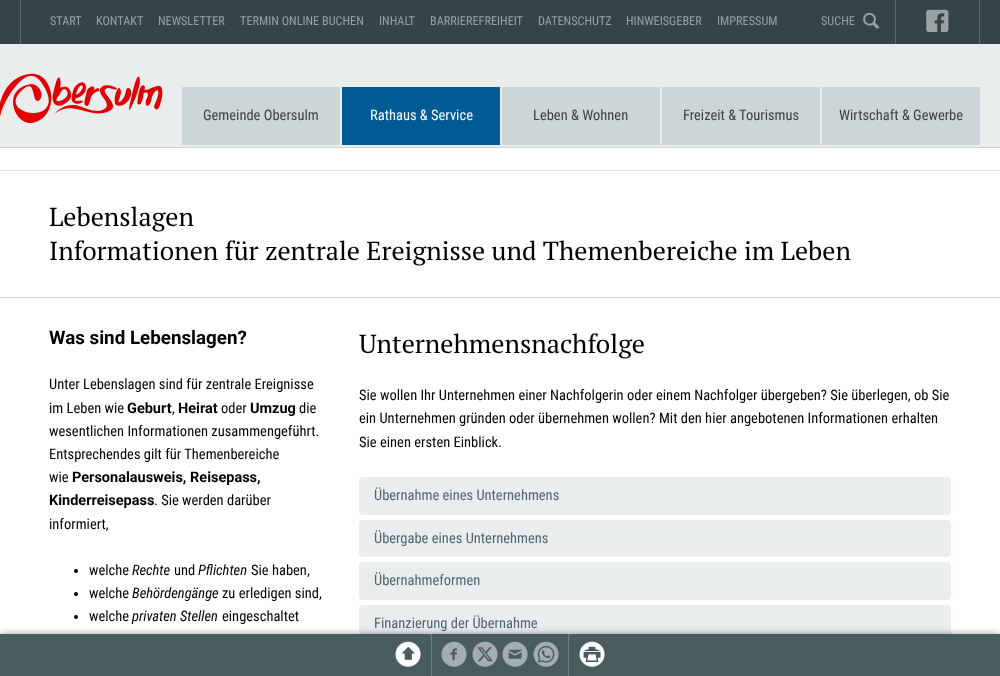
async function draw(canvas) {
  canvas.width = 1000
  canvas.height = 676
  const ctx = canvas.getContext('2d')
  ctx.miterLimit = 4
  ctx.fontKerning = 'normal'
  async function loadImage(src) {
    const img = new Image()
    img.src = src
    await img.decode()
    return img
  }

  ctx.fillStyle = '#fff'
  ctx.fillRect(0, 0, 1000, 676)
  ctx.fillStyle = '#354447'
  ctx.fillRect(0, 0, 1000, 44)
  ctx.fillStyle = '#5d696c'
  ctx.fillRect(979, 0, 1, 44)
  ctx.fillRect(20, 0, 1, 44)
  ctx.font = '12.25px Roboto Condensed'
  ctx.fillStyle = '#9aa2a3'
  ctx.fillText('START', 50, 25)
  ctx.fillText('KONTAKT', 96, 25)
  ctx.fillText('NEWSLETTER', 158, 25)
  ctx.fillText('TERMIN ONLINE BUCHEN', 240, 25)
  ctx.fillText('INHALT', 379, 25)
  ctx.fillText('BARRIEREFREIHEIT', 430, 25)
  ctx.fillText('DATENSCHUTZ', 538, 25)
  ctx.fillText('HINWEISGEBER', 626, 25)
  ctx.fillText('IMPRESSUM', 717, 25)
  ctx.fillText('SUCHE', 821, 25)
  ctx.drawImage(await loadImage('image0.png'), 863, 12, 17, 17)
  ctx.fillStyle = '#5d696c'
  ctx.fillRect(895, 0, 1, 44)
  ctx.drawImage(await loadImage('image1.png'), 926, 9, 23, 23)
  ctx.fillStyle = '#e9edee'
  ctx.fillRect(0, 44, 1000, 103)
  ctx.fillStyle = '#cdd5d7'
  ctx.fillRect(0, 147, 1000, 1)
  ctx.drawImage(await loadImage('image2.png'), 0, 73, 163, 51)
  ctx.fillStyle = '#ccd6d8'
  ctx.fillRect(182, 87, 158, 58)
  ctx.font = '14.5px Roboto Condensed'
  ctx.fillStyle = '#3d4041'
  ctx.fillText('Gemeinde Obersulm', 203, 120)
  ctx.fillStyle = '#005a96'
  ctx.fillRect(342, 87, 158, 58)
  ctx.fillStyle = '#fff'
  ctx.fillText('Rathaus & Service', 370, 120)
  ctx.fillStyle = '#ccd6d8'
  ctx.fillRect(502, 87, 158, 58)
  ctx.fillStyle = '#3d4041'
  ctx.fillText('Leben & Wohnen', 533, 120)
  ctx.fillStyle = '#ccd6d8'
  ctx.fillRect(662, 87, 158, 58)
  ctx.fillStyle = '#3d4041'
  ctx.fillText('Freizeit & Tourismus', 683, 120)
  ctx.fillStyle = '#ccd6d8'
  ctx.fillRect(822, 87, 158, 58)
  ctx.fillStyle = '#3d4041'
  ctx.fillText('Wirtschaft & Gewerbe', 839, 120)
  ctx.fillStyle = '#dfe4e5'
  ctx.fillRect(0, 170, 1000, 1)
  ctx.font = '26.1px PT Serif'
  ctx.fillStyle = '#000'
  ctx.fillText('Lebenslagen', 49, 226)
  ctx.fillText('Informationen für zentrale Ereignisse und Themenbereiche im Leben', 49, 260)
  ctx.fillStyle = '#ced6d7'
  ctx.fillRect(0, 297, 1000, 1)
  ctx.font = 'bold 18.8px Roboto'
  ctx.fillStyle = '#000'
  ctx.fillText('Was sind Lebenslagen?', 49, 344)
  ctx.font = '14.5px Roboto Condensed'
  ctx.fillText('Unter Lebenslagen sind für zentrale Ereignisse', 49, 389)
  ctx.fillText('im Leben wie', 49, 413)
  ctx.font = 'bold 14.5px Roboto'
  ctx.fillText('Geburt', 127, 413)
  ctx.font = '14.5px Roboto Condensed'
  ctx.fillText(',', 172, 413)
  ctx.font = 'bold 14.5px Roboto'
  ctx.fillText('Heirat', 178, 413)
  ctx.font = '14.5px Roboto Condensed'
  ctx.fillText('oder', 221, 413)
  ctx.font = 'bold 14.5px Roboto'
  ctx.fillText('Umzug', 250, 413)
  ctx.font = '14.5px Roboto Condensed'
  ctx.fillText('die', 299, 413)
  ctx.fillText('wesentlichen Informationen zusammengeführt.', 49, 436)
  ctx.fillText('Entsprechendes gilt für Themenbereiche', 49, 459)
  ctx.fillText('wie', 49, 482)
  ctx.font = 'bold 14.5px Roboto'
  ctx.fillText('Personalausweis, Reisepass,', 72, 482)
  ctx.fillText('Kinderreisepass', 49, 505)
  ctx.font = '14.5px Roboto Condensed'
  ctx.fillText('. Sie werden darüber', 154, 505)
  ctx.fillText('informiert,', 49, 529)
  ctx.beginPath()
  ctx.arc(76, 571, 2, 0, 2 * Math.PI)
  ctx.fill()
  ctx.fillText('welche', 89, 575)
  ctx.font = 'italic 14.5px Roboto Condensed'
  ctx.fillText('Rechte', 132, 575)
  ctx.font = '14.5px Roboto Condensed'
  ctx.fillText('und', 174, 575)
  ctx.font = 'italic 14.5px Roboto Condensed'
  ctx.fillText('Pflichten', 198, 575)
  ctx.font = '14.5px Roboto Condensed'
  ctx.fillText('Sie haben,', 251, 575)
  ctx.beginPath()
  ctx.arc(76, 594, 2, 0, 2 * Math.PI)
  ctx.fill()
  ctx.fillText('welche', 89, 598)
  ctx.font = 'italic 14.5px Roboto Condensed'
  ctx.fillText('Behördengänge', 132, 598)
  ctx.font = '14.5px Roboto Condensed'
  ctx.fillText('zu erledigen sind,', 222, 598)
  ctx.beginPath()
  ctx.arc(76, 617, 2, 0, 2 * Math.PI)
  ctx.fill()
  ctx.fillText('welche', 89, 621)
  ctx.font = 'italic 14.5px Roboto Condensed'
  ctx.fillText('privaten Stellen', 132, 621)
  ctx.font = '14.5px Roboto Condensed'
  ctx.fillText('eingeschaltet', 222, 621)
  ctx.font = '26.1px PT Serif'
  ctx.fillText('Unternehmensnachfolge', 359, 353)
  ctx.font = '14.5px Roboto Condensed'
  ctx.fillText('Sie wollen Ihr Unternehmen einer Nachfolgerin oder einem Nachfolger übergeben? Sie überlegen, ob Sie', 359, 400)
  ctx.fillText('ein Unternehmen gründen oder übernehmen wollen? Mit den hier angebotenen Informationen erhalten', 359, 423)
  ctx.fillText('Sie einen ersten Einblick.', 359, 447)
  ctx.fillStyle = '#e9edee'
  ctx.beginPath()
  ctx.roundRect(359, 477, 592, 38, 4)
  ctx.fill()
  ctx.fillStyle = '#50656a'
  ctx.fillText('Übernahme eines Unternehmens', 374, 500)
  ctx.fillStyle = '#e9edee'
  ctx.beginPath()
  ctx.roundRect(359, 520, 592, 37, 4)
  ctx.fill()
  ctx.fillStyle = '#50656a'
  ctx.fillText('Übergabe eines Unternehmens', 374, 543)
  ctx.fillStyle = '#e9edee'
  ctx.beginPath()
  ctx.roundRect(359, 562, 592, 38, 4)
  ctx.fill()
  ctx.fillStyle = '#50656a'
  ctx.fillText('Übernahmeformen', 374, 585)
  ctx.fillStyle = '#e9edee'
  ctx.beginPath()
  ctx.roundRect(359, 605, 592, 37, 4)
  ctx.fill()
  ctx.fillStyle = '#50656a'
  ctx.fillText('Finanzierung der Übernahme', 374, 628)
  ctx.fillStyle = '#00000066'
  ctx.filter = 'blur(3.5px)'
  ctx.beginPath()
  ctx.rect(0, 634, 1000, 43)
  ctx.fill()
  ctx.filter = 'none'
  ctx.fillStyle = '#495d61'
  ctx.fillRect(0, 634, 1000, 42)
  ctx.fillStyle = '#6d7d81'
  ctx.fillRect(431, 634, 1, 42)
  ctx.drawImage(await loadImage('image3.png'), 395, 641, 26, 26)
  ctx.drawImage(await loadImage('image4.png'), 441, 641, 26, 26)
  ctx.drawImage(await loadImage('image5.png'), 472, 641, 26, 26)
  ctx.drawImage(await loadImage('image6.png'), 502, 641, 26, 26)
  ctx.drawImage(await loadImage('image7.png'), 533, 641, 26, 26)
  ctx.fillRect(568, 634, 1, 42)
  ctx.drawImage(await loadImage('image8.png'), 579, 641, 26, 26)
}

draw(document.querySelector('canvas'))
